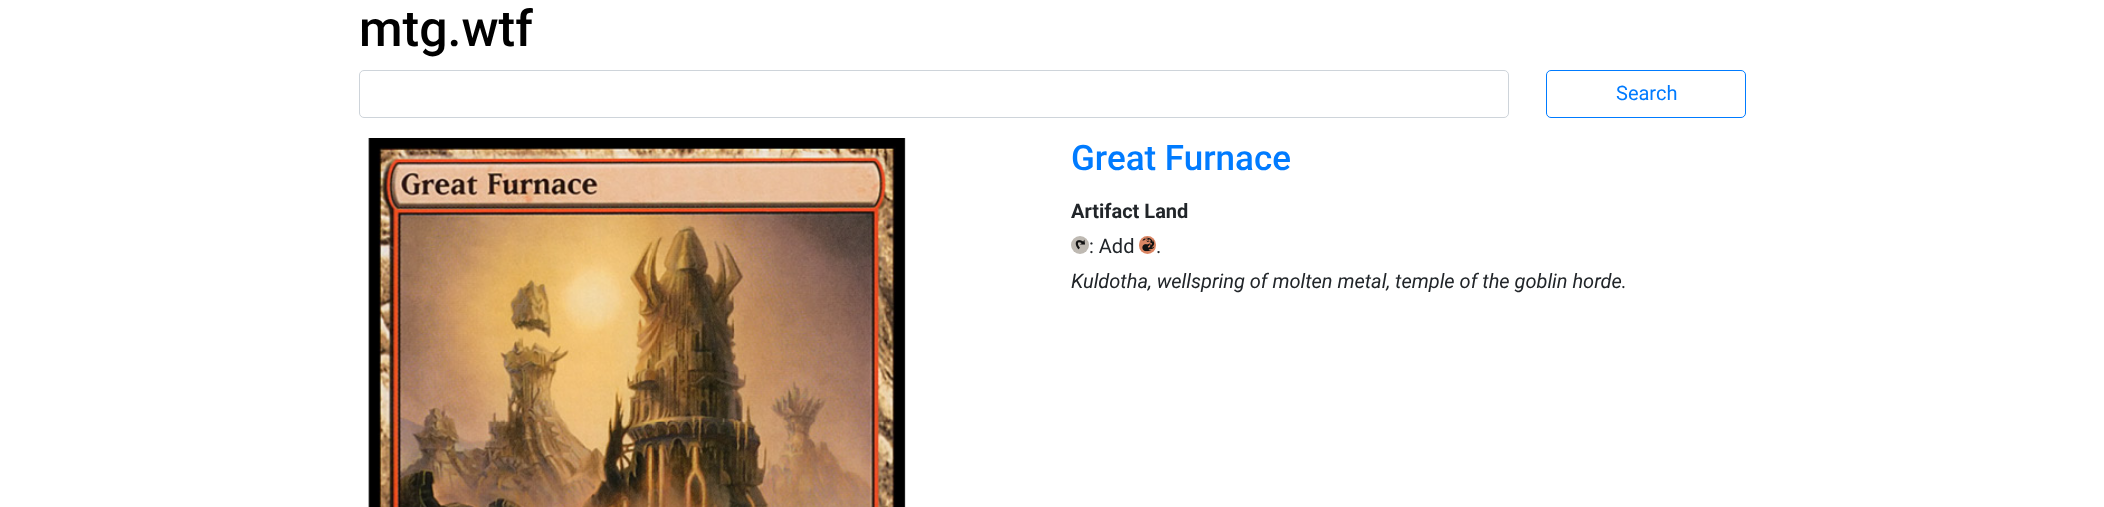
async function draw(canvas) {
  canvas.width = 2104
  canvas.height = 507
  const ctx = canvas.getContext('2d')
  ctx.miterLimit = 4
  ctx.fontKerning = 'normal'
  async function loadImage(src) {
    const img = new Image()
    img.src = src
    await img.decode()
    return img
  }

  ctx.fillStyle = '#fff'
  ctx.fillRect(0, 0, 2104, 507)
  ctx.font = '500 50px Roboto'
  ctx.fillStyle = '#000'
  ctx.fillText('mtg.wtf', 359, 46)
  ctx.beginPath()
  ctx.roundRect(359.5, 70.5, 1149, 47, 4.5)
  ctx.strokeStyle = '#ced4da'
  ctx.stroke()
  ctx.beginPath()
  ctx.roundRect(1546.5, 70.5, 199, 47, 4.5)
  ctx.strokeStyle = '#007bff'
  ctx.stroke()
  ctx.font = '20px Roboto'
  ctx.fillStyle = '#007bff'
  ctx.fillText('Search', 1616, 100)
  ctx.drawImage(await loadImage('image0.png'), 368, 138, 538, 369)
  ctx.font = '500 35px Roboto'
  ctx.fillText('Great Furnace', 1071, 170)
  ctx.font = 'bold 20px Roboto'
  ctx.fillStyle = '#212529'
  ctx.fillText('Artifact Land', 1071, 218)
  ctx.fillStyle = '#beb9b2'
  ctx.beginPath()
  ctx.arc(1080, 245, 9, 0, 2 * Math.PI)
  ctx.fill()
  ctx.drawImage(await loadImage('image1.png'), 1075, 239, 10, 11)
  ctx.font = '20px Roboto'
  ctx.fillStyle = '#212529'
  ctx.fillText(': Add', 1089, 253)
  ctx.fillStyle = '#db8664'
  ctx.beginPath()
  ctx.roundRect(1139, 236, 17, 18, 8.5)
  ctx.fill()
  ctx.drawImage(await loadImage('image2.png'), 1142, 237, 13, 15)
  ctx.fillStyle = '#212529'
  ctx.fillText('.', 1156, 253)
  ctx.font = 'italic 20px Roboto'
  ctx.fillText('Kuldotha, wellspring of molten metal, temple of the goblin horde.', 1071, 288)
}

draw(document.querySelector('canvas'))
